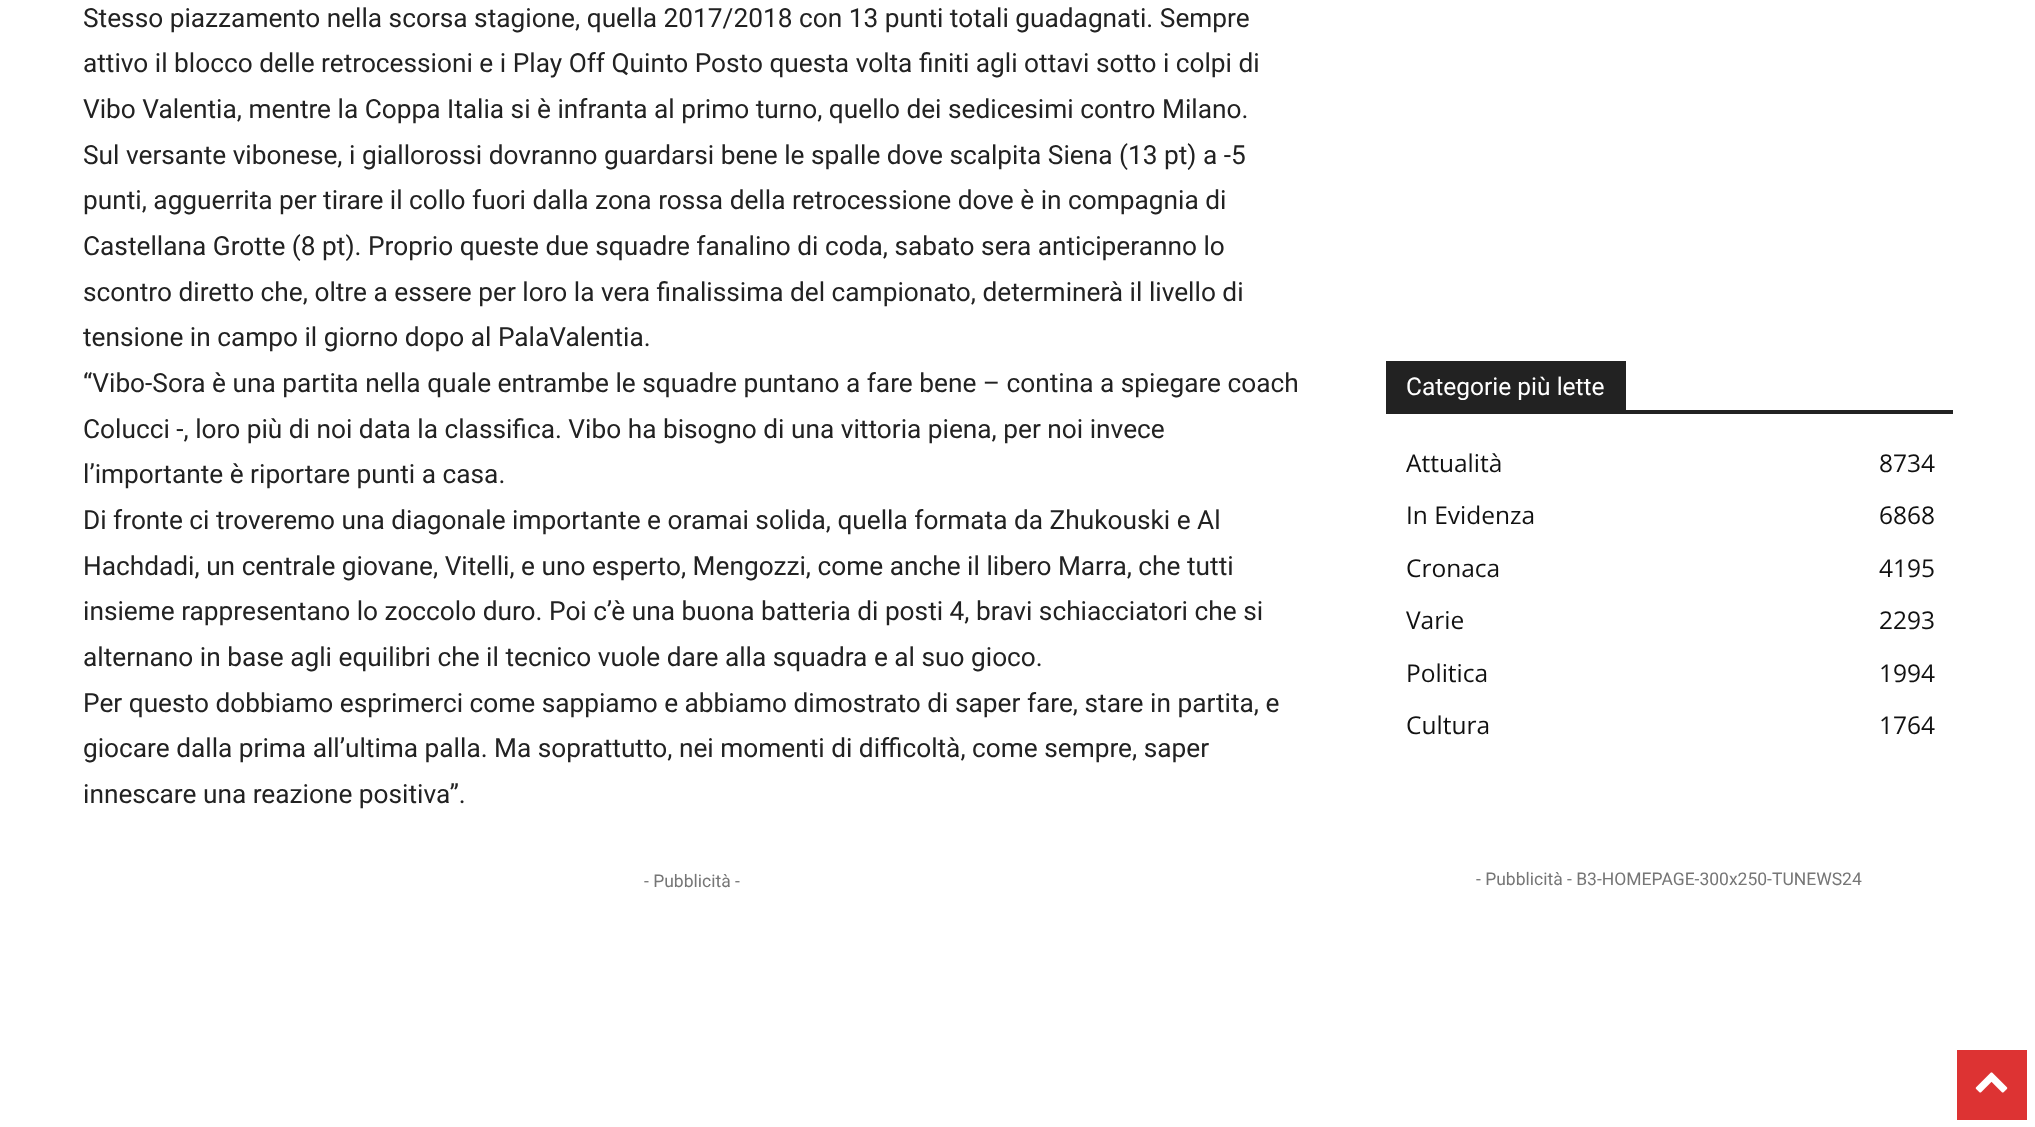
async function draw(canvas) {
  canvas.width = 2035
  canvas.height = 1127
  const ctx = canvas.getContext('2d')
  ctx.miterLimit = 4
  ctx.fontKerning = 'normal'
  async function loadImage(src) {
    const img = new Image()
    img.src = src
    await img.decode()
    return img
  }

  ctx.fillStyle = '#fff'
  ctx.fillRect(0, 0, 2035, 1127)
  ctx.font = '26.25px Roboto'
  ctx.fillStyle = '#222'
  ctx.fillText('Stesso piazzamento nella scorsa stagione, quella 2017/2018 con 13 punti totali guadagnati. Sempre', 83, 27)
  ctx.fillText('attivo il blocco delle retrocessioni e i Play Off Quinto Posto questa volta finiti agli ottavi sotto i colpi di', 83, 72)
  ctx.fillText('Vibo Valentia, mentre la Coppa Italia si è infranta al primo turno, quello dei sedicesimi contro Milano.', 83, 118)
  ctx.fillText('Sul versante vibonese, i giallorossi dovranno guardarsi bene le spalle dove scalpita Siena (13 pt) a -5', 83, 164)
  ctx.fillText('punti, agguerrita per tirare il collo fuori dalla zona rossa della retrocessione dove è in compagnia di', 83, 209)
  ctx.fillText('Castellana Grotte (8 pt). Proprio queste due squadre fanalino di coda, sabato sera anticiperanno lo', 83, 255)
  ctx.fillText('scontro diretto che, oltre a essere per loro la vera finalissima del campionato, determinerà il livello di', 83, 301)
  ctx.fillText('tensione in campo il giorno dopo al PalaValentia.', 83, 346)
  ctx.fillText('“Vibo-Sora è una partita nella quale entrambe le squadre puntano a fare bene – contina a spiegare coach', 83, 392)
  ctx.fillText('Colucci -, loro più di noi data la classifica. Vibo ha bisogno di una vittoria piena, per noi invece', 83, 438)
  ctx.fillText('l’importante è riportare punti a casa.', 83, 483)
  ctx.fillText('Di fronte ci troveremo una diagonale importante e oramai solida, quella formata da Zhukouski e Al', 83, 529)
  ctx.fillText('Hachdadi, un centrale giovane, Vitelli, e uno esperto, Mengozzi, come anche il libero Marra, che tutti', 83, 575)
  ctx.fillText('insieme rappresentano lo zoccolo duro. Poi c’è una buona batteria di posti 4, bravi schiacciatori che si', 83, 620)
  ctx.fillText('alternano in base agli equilibri che il tecnico vuole dare alla squadra e al suo gioco.', 83, 666)
  ctx.fillText('Per questo dobbiamo esprimerci come sappiamo e abbiamo dimostrato di saper fare, stare in partita, e', 83, 712)
  ctx.fillText('giocare dalla prima all’ultima palla. Ma soprattutto, nei momenti di difficoltà, come sempre, saper', 83, 757)
  ctx.fillText('innescare una reazione positiva”.', 83, 803)
  ctx.font = '17.5px Roboto'
  ctx.fillStyle = '#767676'
  ctx.fillText('- Pubblicità -', 644, 887)
  ctx.fillStyle = '#222'
  ctx.fillRect(1386, 410, 567, 4)
  ctx.fillRect(1386, 361, 240, 49)
  ctx.font = '24.5px Roboto'
  ctx.fillStyle = '#fff'
  ctx.fillText('Categorie più lette', 1406, 395)
  ctx.font = '24.5px Open Sans'
  ctx.fillStyle = '#111'
  ctx.fillText('Attualità', 1406, 472)
  ctx.fillText('8734', 1879, 472)
  ctx.fillText('In Evidenza', 1406, 524)
  ctx.fillText('6868', 1879, 524)
  ctx.fillText('Cronaca', 1406, 577)
  ctx.fillText('4195', 1879, 577)
  ctx.fillText('Varie', 1406, 629)
  ctx.fillText('2293', 1879, 629)
  ctx.fillText('Politica', 1406, 682)
  ctx.fillText('1994', 1879, 682)
  ctx.fillText('Cultura', 1406, 734)
  ctx.fillText('1764', 1879, 734)
  ctx.font = '17.5px Roboto'
  ctx.fillStyle = '#767676'
  ctx.fillText('- Pubblicità - B3-HOMEPAGE-300x250-TUNEWS24', 1476, 885)
  ctx.fillStyle = '#d33'
  ctx.fillRect(1957, 1050, 70, 70)
  ctx.drawImage(await loadImage('image0.png'), 1975, 1072, 33, 21)
}

draw(document.querySelector('canvas'))
